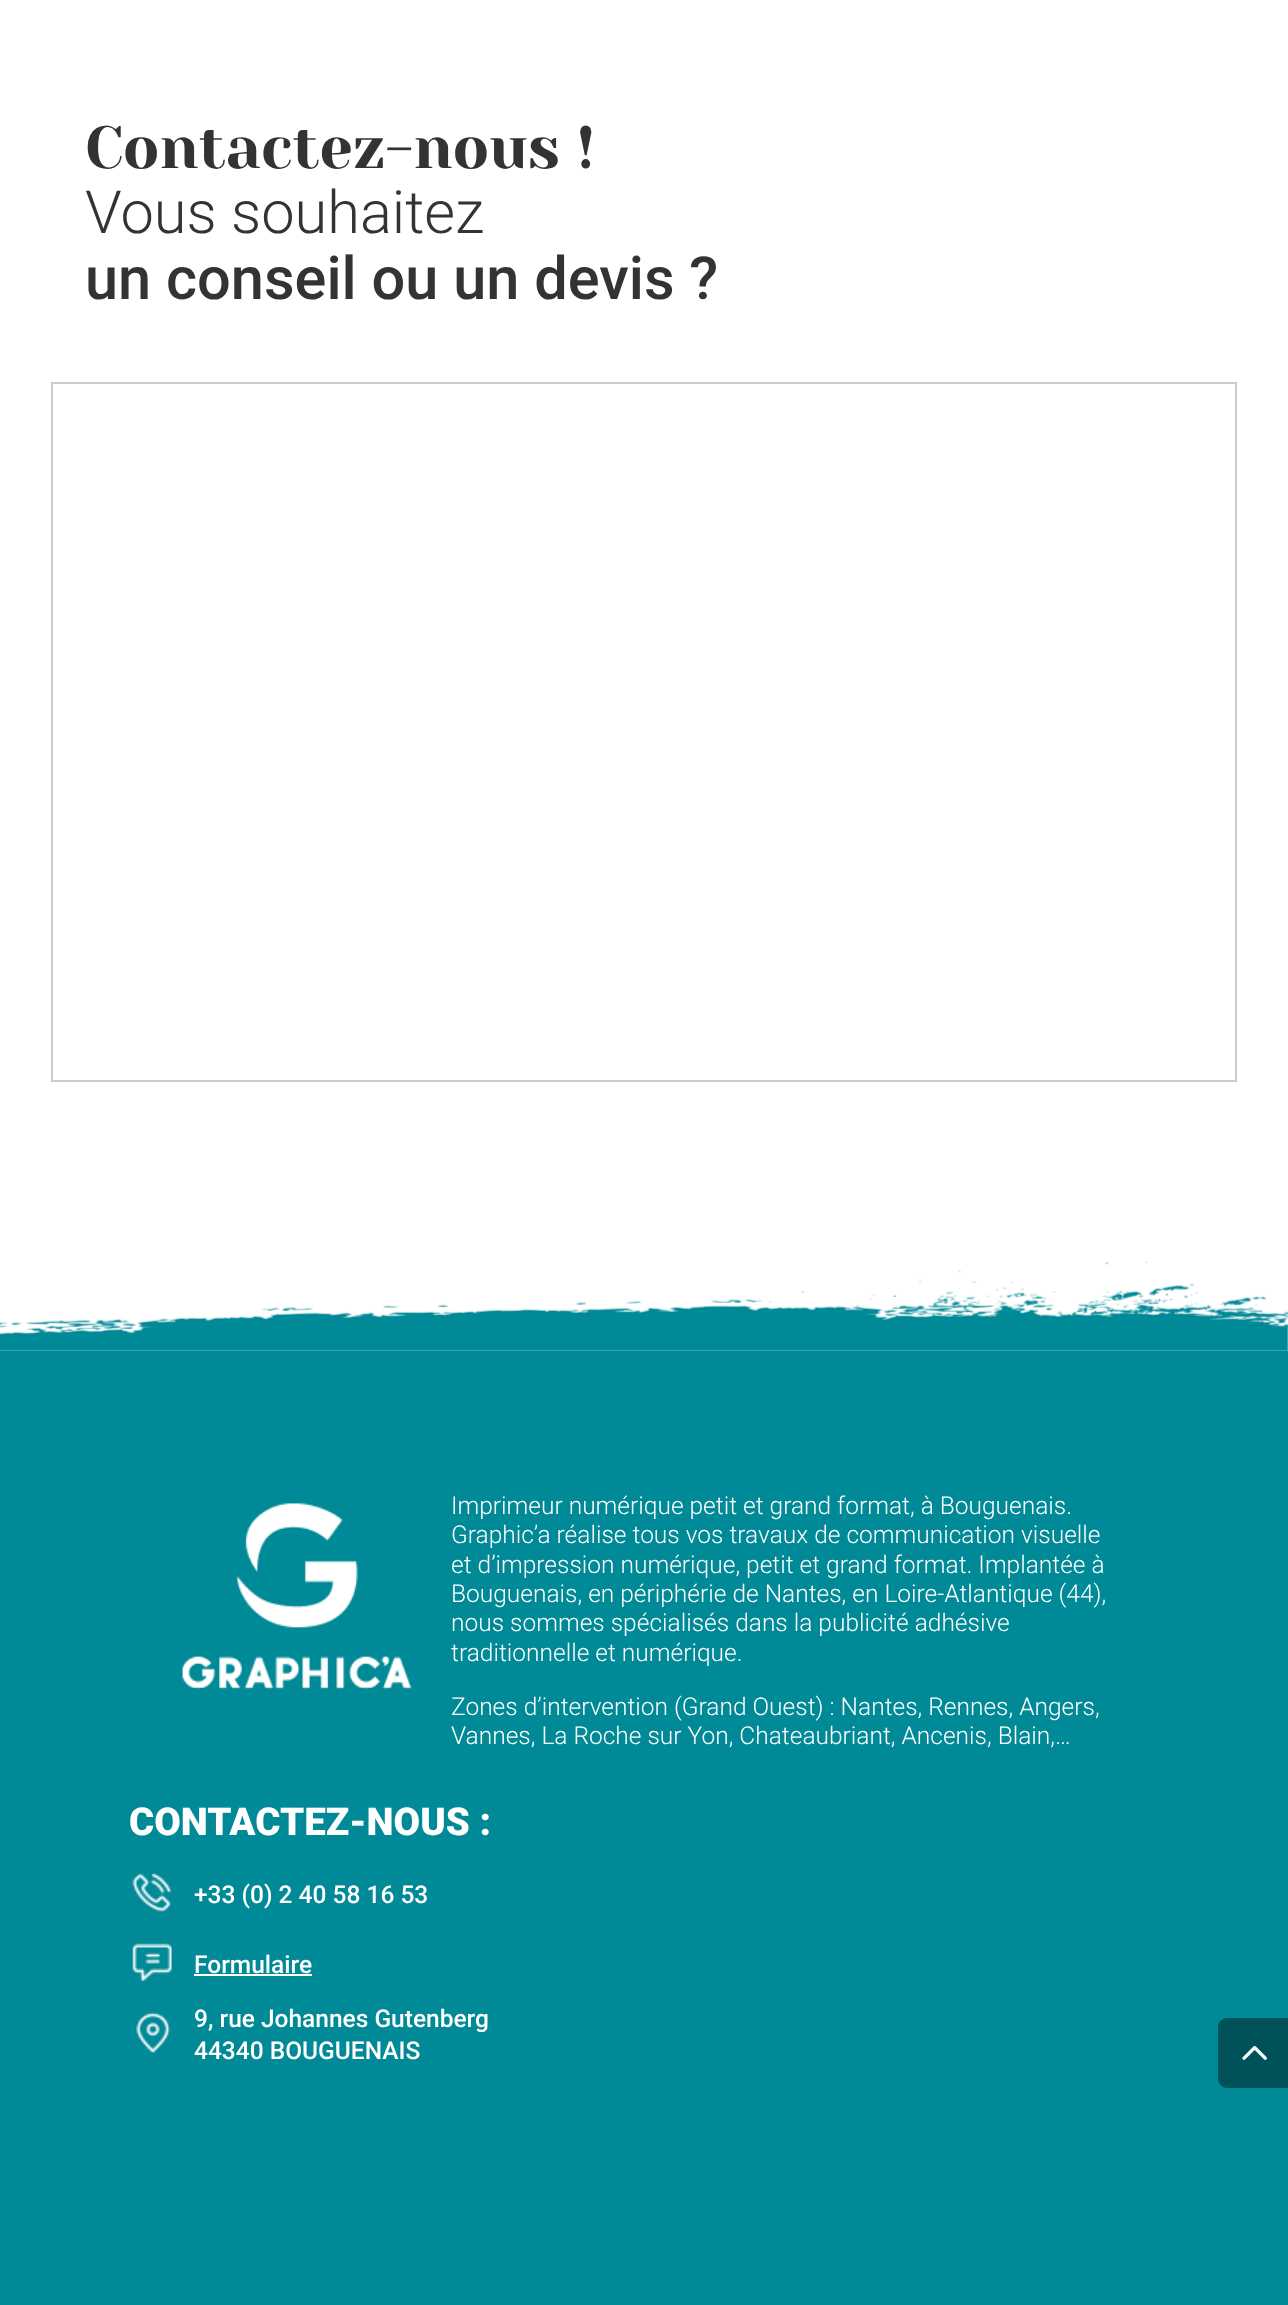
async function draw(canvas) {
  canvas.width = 1288
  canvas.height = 2305
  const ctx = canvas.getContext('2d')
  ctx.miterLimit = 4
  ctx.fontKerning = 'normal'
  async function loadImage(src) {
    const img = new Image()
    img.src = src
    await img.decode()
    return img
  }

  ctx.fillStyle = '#fff'
  ctx.fillRect(0, 0, 1288, 2305)
  ctx.font = '59.5px Yeseva One'
  ctx.fillStyle = '#333'
  ctx.fillText('Contactez-nous !', 85, 168)
  ctx.font = '300 59.5px Roboto'
  ctx.fillText('Vous souhaitez', 85, 233)
  ctx.font = '500 59.5px Roboto'
  ctx.fillText('un conseil ou un devis ?', 85, 299)
  ctx.strokeStyle = '#ccc'
  ctx.lineWidth = 2
  ctx.strokeRect(52, 383, 1184, 698)
  ctx.drawImage(await loadImage('image0.png'), 0, 1261, 1288, 90)
  ctx.fillStyle = '#008996'
  ctx.fillRect(0, 1351, 1288, 954)
  ctx.drawImage(await loadImage('image1.png'), 182, 1503, 230, 187)
  ctx.font = '300 24.5px Roboto'
  ctx.fillStyle = '#fff'
  ctx.fillText('Imprimeur numérique petit et grand format, à Bouguenais.', 451, 1514)
  ctx.fillText('Graphic’a réalise tous vos travaux de communication visuelle', 451, 1543)
  ctx.fillText('et d’impression numérique, petit et grand format. Implantée à', 451, 1573)
  ctx.fillText('Bouguenais, en périphérie de Nantes, en Loire-Atlantique (44),', 451, 1602)
  ctx.fillText('nous sommes spécialisés dans la publicité adhésive', 451, 1631)
  ctx.fillText('traditionnelle et numérique.', 451, 1661)
  ctx.fillText('Zones d’intervention (Grand Ouest) : Nantes, Rennes, Angers,', 451, 1715)
  ctx.fillText('Vannes, La Roche sur Yon, Chateaubriant, Ancenis, Blain,…', 451, 1744)
  ctx.font = '900 38.5px Roboto'
  ctx.fillText('CONTACTEZ-NOUS :', 129, 1835)
  ctx.drawImage(await loadImage('image2.png'), 132, 1873, 40, 39)
  ctx.font = '500 24.5px Roboto'
  ctx.fillText('+33 (0) 2 40 58 16 53', 194, 1903)
  ctx.drawImage(await loadImage('image3.png'), 132, 1943, 40, 39)
  ctx.fillText('Formulaire', 194, 1973)
  ctx.fillRect(194, 1974, 118, 2)
  ctx.drawImage(await loadImage('image4.png'), 136, 2012, 35, 41)
  ctx.fillText('9, rue Johannes Gutenberg', 194, 2027)
  ctx.fillText('44340 BOUGUENAIS', 194, 2059)
  ctx.fillStyle = '#00525a'
  ctx.beginPath()
  ctx.roundRect(1218, 2018, 70, 70, [9, 0, 0, 9])
  ctx.fill()
  ctx.drawImage(await loadImage('image5.png'), 1242, 2046, 25, 14)
}

draw(document.querySelector('canvas'))
